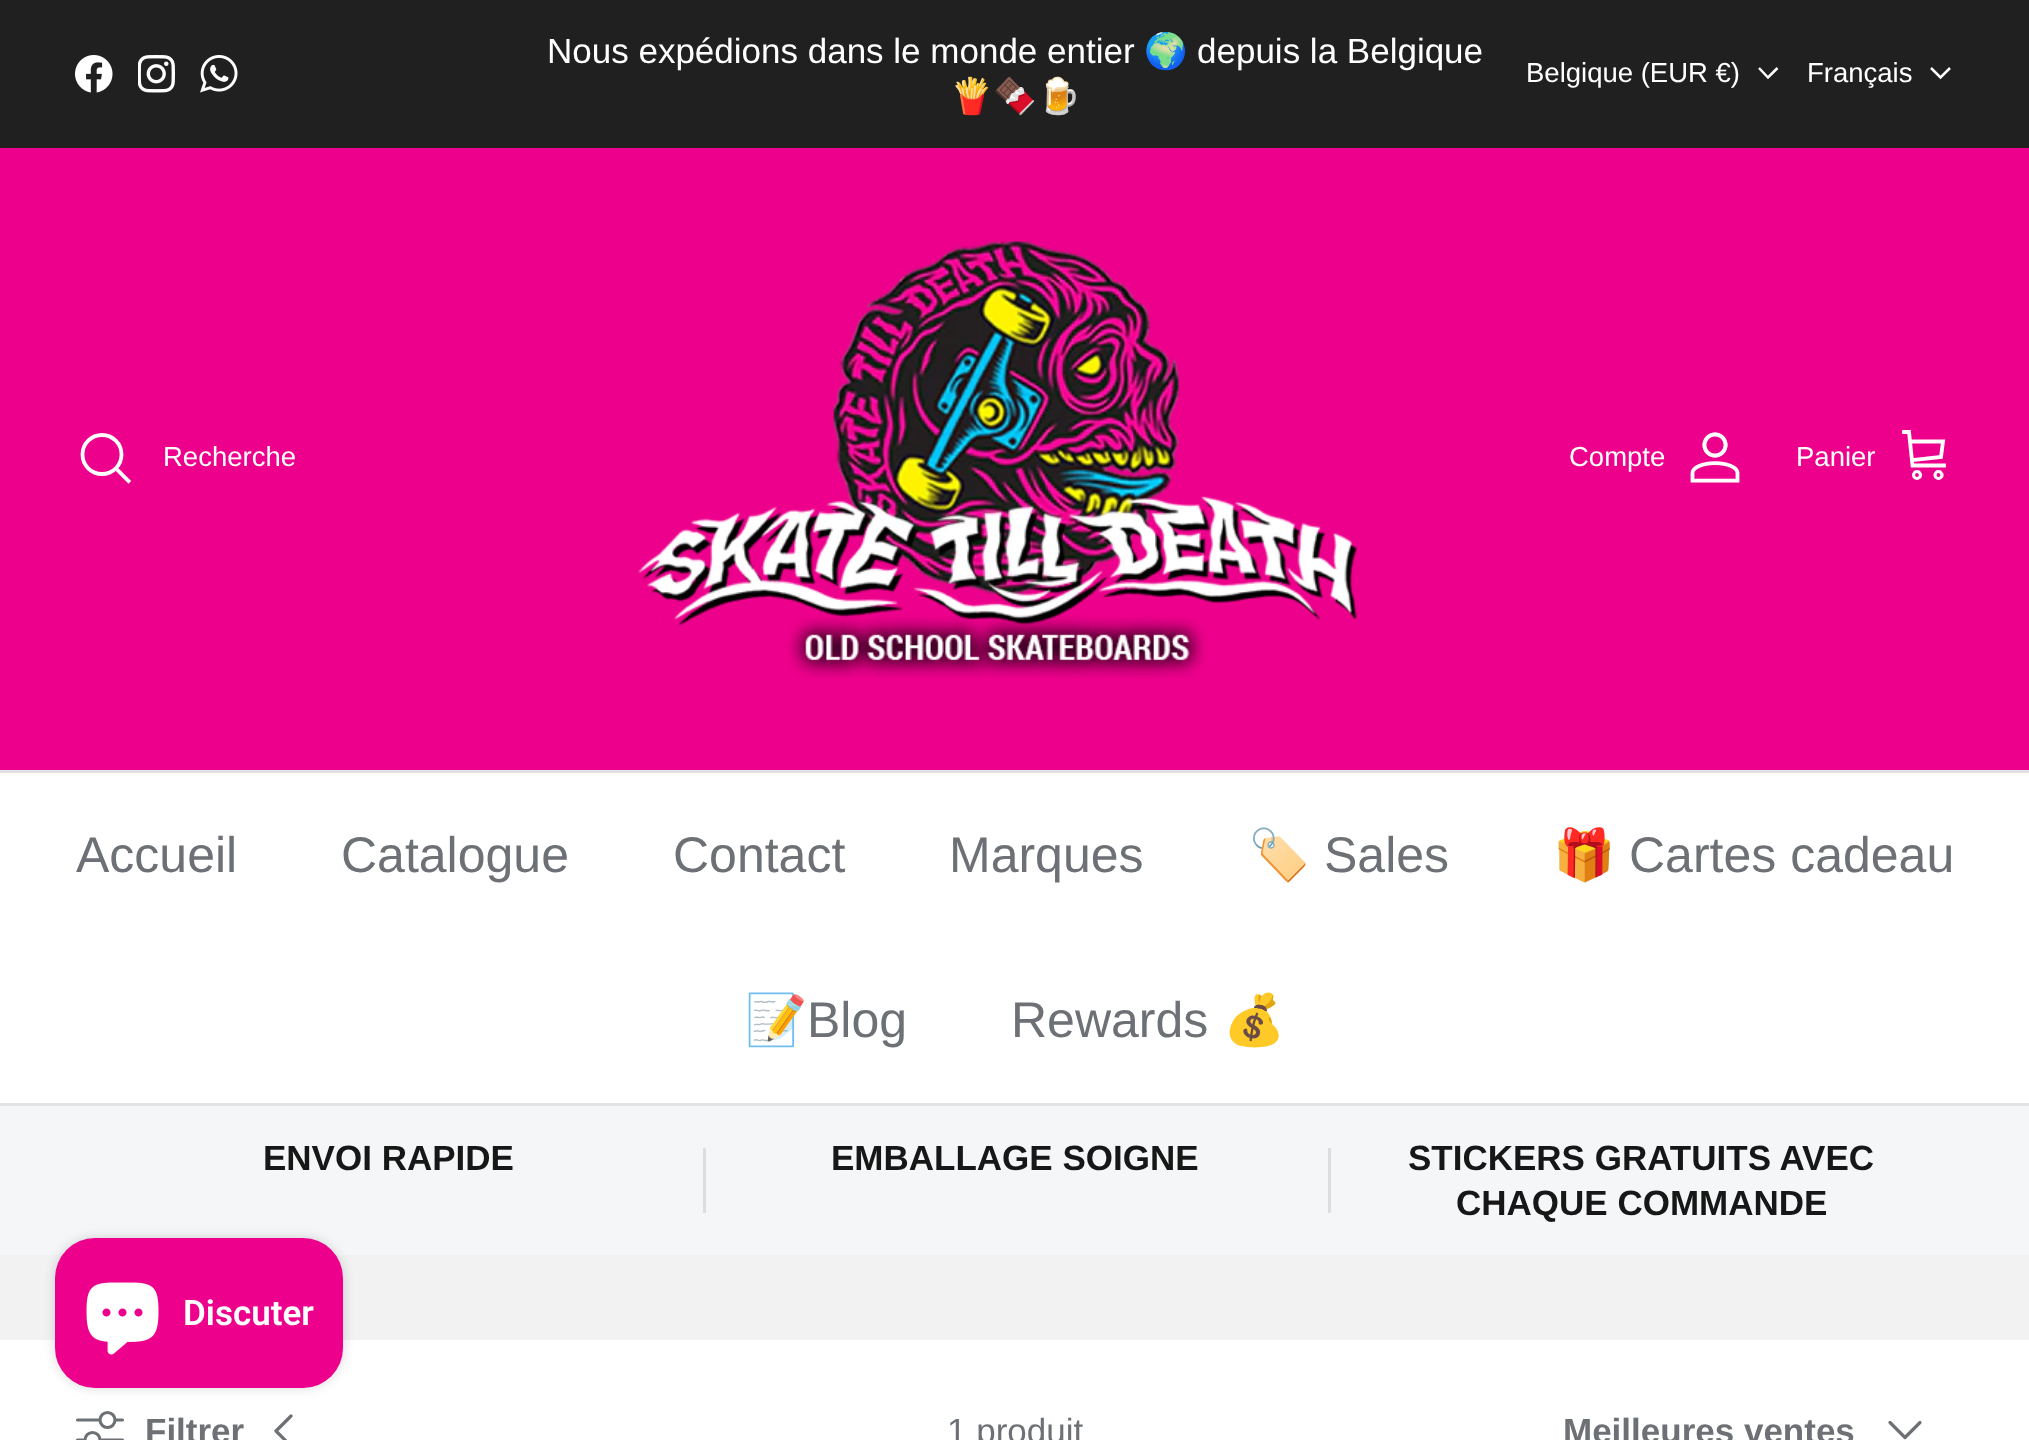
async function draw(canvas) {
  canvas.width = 2029
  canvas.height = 1440
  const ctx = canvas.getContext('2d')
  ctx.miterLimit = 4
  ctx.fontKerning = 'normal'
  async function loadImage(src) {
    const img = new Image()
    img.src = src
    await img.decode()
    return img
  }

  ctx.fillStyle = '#fff'
  ctx.fillRect(0, 0, 2029, 1440)
  ctx.fillStyle = '#202020'
  ctx.fillRect(0, 0, 2029, 148)
  ctx.drawImage(await loadImage('image0.png'), 75, 55, 38, 38)
  ctx.drawImage(await loadImage('image1.png'), 138, 55, 37, 38)
  ctx.drawImage(await loadImage('image2.png'), 200, 55, 38, 38)
  ctx.font = '35px Liberation Sans'
  ctx.fillStyle = '#fff'
  ctx.fillText('Nous expédions dans le monde entier', 547, 63)
  ctx.font = '35px Noto Color Emoji'
  ctx.fillText('🌍', 1144, 63)
  ctx.font = '35px Liberation Sans'
  ctx.fillText('depuis la Belgique', 1197, 63)
  ctx.font = '35px Noto Color Emoji'
  ctx.fillText('🍟🍫🍺', 950, 108)
  ctx.font = '27.5px Liberation Sans'
  ctx.fillText('Belgique (EUR €)', 1526, 82)
  ctx.beginPath()
  ctx.moveTo(1777.5, 68)
  ctx.lineTo(1768, 77.5)
  ctx.lineTo(1759, 68)
  ctx.strokeStyle = '#fff'
  ctx.lineWidth = 2.5
  ctx.stroke()
  ctx.fillText('Français', 1807, 82)
  ctx.beginPath()
  ctx.moveTo(1950, 68)
  ctx.lineTo(1940.5, 77.5)
  ctx.lineTo(1931, 68)
  ctx.stroke()
  ctx.fillStyle = '#ed008c'
  ctx.fillRect(0, 148, 2029, 622)
  ctx.fillStyle = '#e2e2e2'
  ctx.fillRect(0, 770, 2029, 3)
  ctx.beginPath()
  ctx.arc(102, 454.5, 19.5, 0, 2 * Math.PI)
  ctx.lineWidth = 3.8
  ctx.stroke()
  ctx.fillStyle = '#fff'
  ctx.fillText('Recherche', 163, 466)
  ctx.beginPath()
  ctx.moveTo(117.5, 470)
  ctx.lineTo(128.5, 481)
  ctx.lineCap = 'square'
  ctx.stroke()
  ctx.drawImage(await loadImage('image3.png'), 638, 241, 719, 438)
  ctx.fillText('Compte', 1569, 466)
  ctx.drawImage(await loadImage('image4.png'), 1690, 432, 50, 51)
  ctx.fillText('Panier', 1796, 466)
  ctx.beginPath()
  ctx.moveTo(1904, 432)
  ctx.lineTo(1909, 432)
  ctx.lineTo(1912.5, 465.5)
  ctx.lineTo(1944, 465.5)
  ctx.moveTo(1910.5, 441.5)
  ctx.lineTo(1943, 441.5)
  ctx.lineTo(1941, 457)
  ctx.lineTo(1914, 460)
  ctx.stroke()
  ctx.beginPath()
  ctx.arc(1917, 475, 3.5, 0, 2 * Math.PI)
  ctx.lineWidth = 3.1
  ctx.stroke()
  ctx.beginPath()
  ctx.arc(1938.5, 475, 3.5, 0, 2 * Math.PI)
  ctx.stroke()
  ctx.fillStyle = '#e2e2e2'
  ctx.fillRect(0, 1103, 2029, 3)
  ctx.font = '50px Liberation Sans'
  ctx.fillStyle = '#6d7175'
  ctx.fillText('Accueil', 76, 872)
  ctx.fillText('Catalogue', 341, 872)
  ctx.fillText('Contact', 673, 872)
  ctx.fillText('Marques', 949, 872)
  ctx.font = '50px Noto Color Emoji'
  ctx.fillText('🏷️', 1248, 872)
  ctx.font = '50px Liberation Sans'
  ctx.fillText('Sales', 1324, 872)
  ctx.font = '50px Noto Color Emoji'
  ctx.fillText('🎁', 1553, 872)
  ctx.font = '50px Liberation Sans'
  ctx.fillText('Cartes cadeau', 1629, 872)
  ctx.font = '50px Noto Color Emoji'
  ctx.fillText('📝', 745, 1037)
  ctx.font = '50px Liberation Sans'
  ctx.fillText('Blog', 807, 1037)
  ctx.fillText('Rewards', 1011, 1037)
  ctx.font = '50px Noto Color Emoji'
  ctx.fillText('💰', 1223, 1037)
  ctx.fillStyle = '#f4f6f8'
  ctx.fillRect(0, 1106, 2029, 149)
  ctx.font = 'bold 35px Liberation Sans'
  ctx.fillStyle = '#171717'
  ctx.fillText('ENVOI RAPIDE', 263, 1170)
  ctx.fillStyle = '#dbddde'
  ctx.fillRect(703, 1148, 3, 65)
  ctx.fillStyle = '#171717'
  ctx.fillText('EMBALLAGE SOIGNE', 831, 1170)
  ctx.fillStyle = '#dbddde'
  ctx.fillRect(1328, 1148, 3, 65)
  ctx.fillStyle = '#171717'
  ctx.fillText('STICKERS GRATUITS AVEC', 1408, 1170)
  ctx.fillText('CHAQUE COMMANDE', 1456, 1215)
  ctx.fillStyle = '#f2f2f2'
  ctx.fillRect(0, 1255, 2029, 85)
  ctx.fillStyle = '#00000026'
  ctx.filter = 'blur(6px)'
  ctx.beginPath()
  ctx.roundRect(55, 1238, 288, 150, 40)
  ctx.fill()
  ctx.filter = 'none'
  ctx.fillStyle = '#ed008c'
  ctx.beginPath()
  ctx.roundRect(55, 1238, 288, 150, 40)
  ctx.fill()
  ctx.drawImage(await loadImage('image5.png'), 86, 1282, 73, 73)
  ctx.font = '600 35px Roboto'
  ctx.fillStyle = '#fff'
  ctx.fillText('Discuter', 183, 1325)
  ctx.beginPath()
  ctx.moveTo(77.5, 1420)
  ctx.lineTo(122.5, 1420)
  ctx.moveTo(77.5, 1440)
  ctx.lineTo(122.5, 1440)
  ctx.strokeStyle = '#6d7175'
  ctx.lineCap = 'round'
  ctx.lineJoin = 'round'
  ctx.stroke()
  ctx.beginPath()
  ctx.arc(107.5, 1420, 7.5, 0, 2 * Math.PI)
  ctx.fill()
  ctx.stroke()
  ctx.beginPath()
  ctx.arc(92.5, 1440, 7.5, 0, 2 * Math.PI)
  ctx.fill()
  ctx.stroke()
  ctx.font = 'bold 35px Liberation Sans'
  ctx.fillStyle = '#6d7175'
  ctx.fillText('Filtrer', 145, 1443)
  ctx.beginPath()
  ctx.moveTo(291, 1416)
  ctx.lineTo(276, 1431)
  ctx.lineTo(291, 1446)
  ctx.lineWidth = 3.2
  ctx.stroke()
  ctx.font = '35px Liberation Sans'
  ctx.fillText('1 produit', 947, 1443)
  ctx.font = 'bold 35px Liberation Sans'
  ctx.fillText('Meilleures ventes', 1563, 1443)
  ctx.beginPath()
  ctx.moveTo(1890, 1422.5)
  ctx.lineTo(1905, 1437.5)
  ctx.lineTo(1920, 1422.5)
  ctx.stroke()
}

draw(document.querySelector('canvas'))
